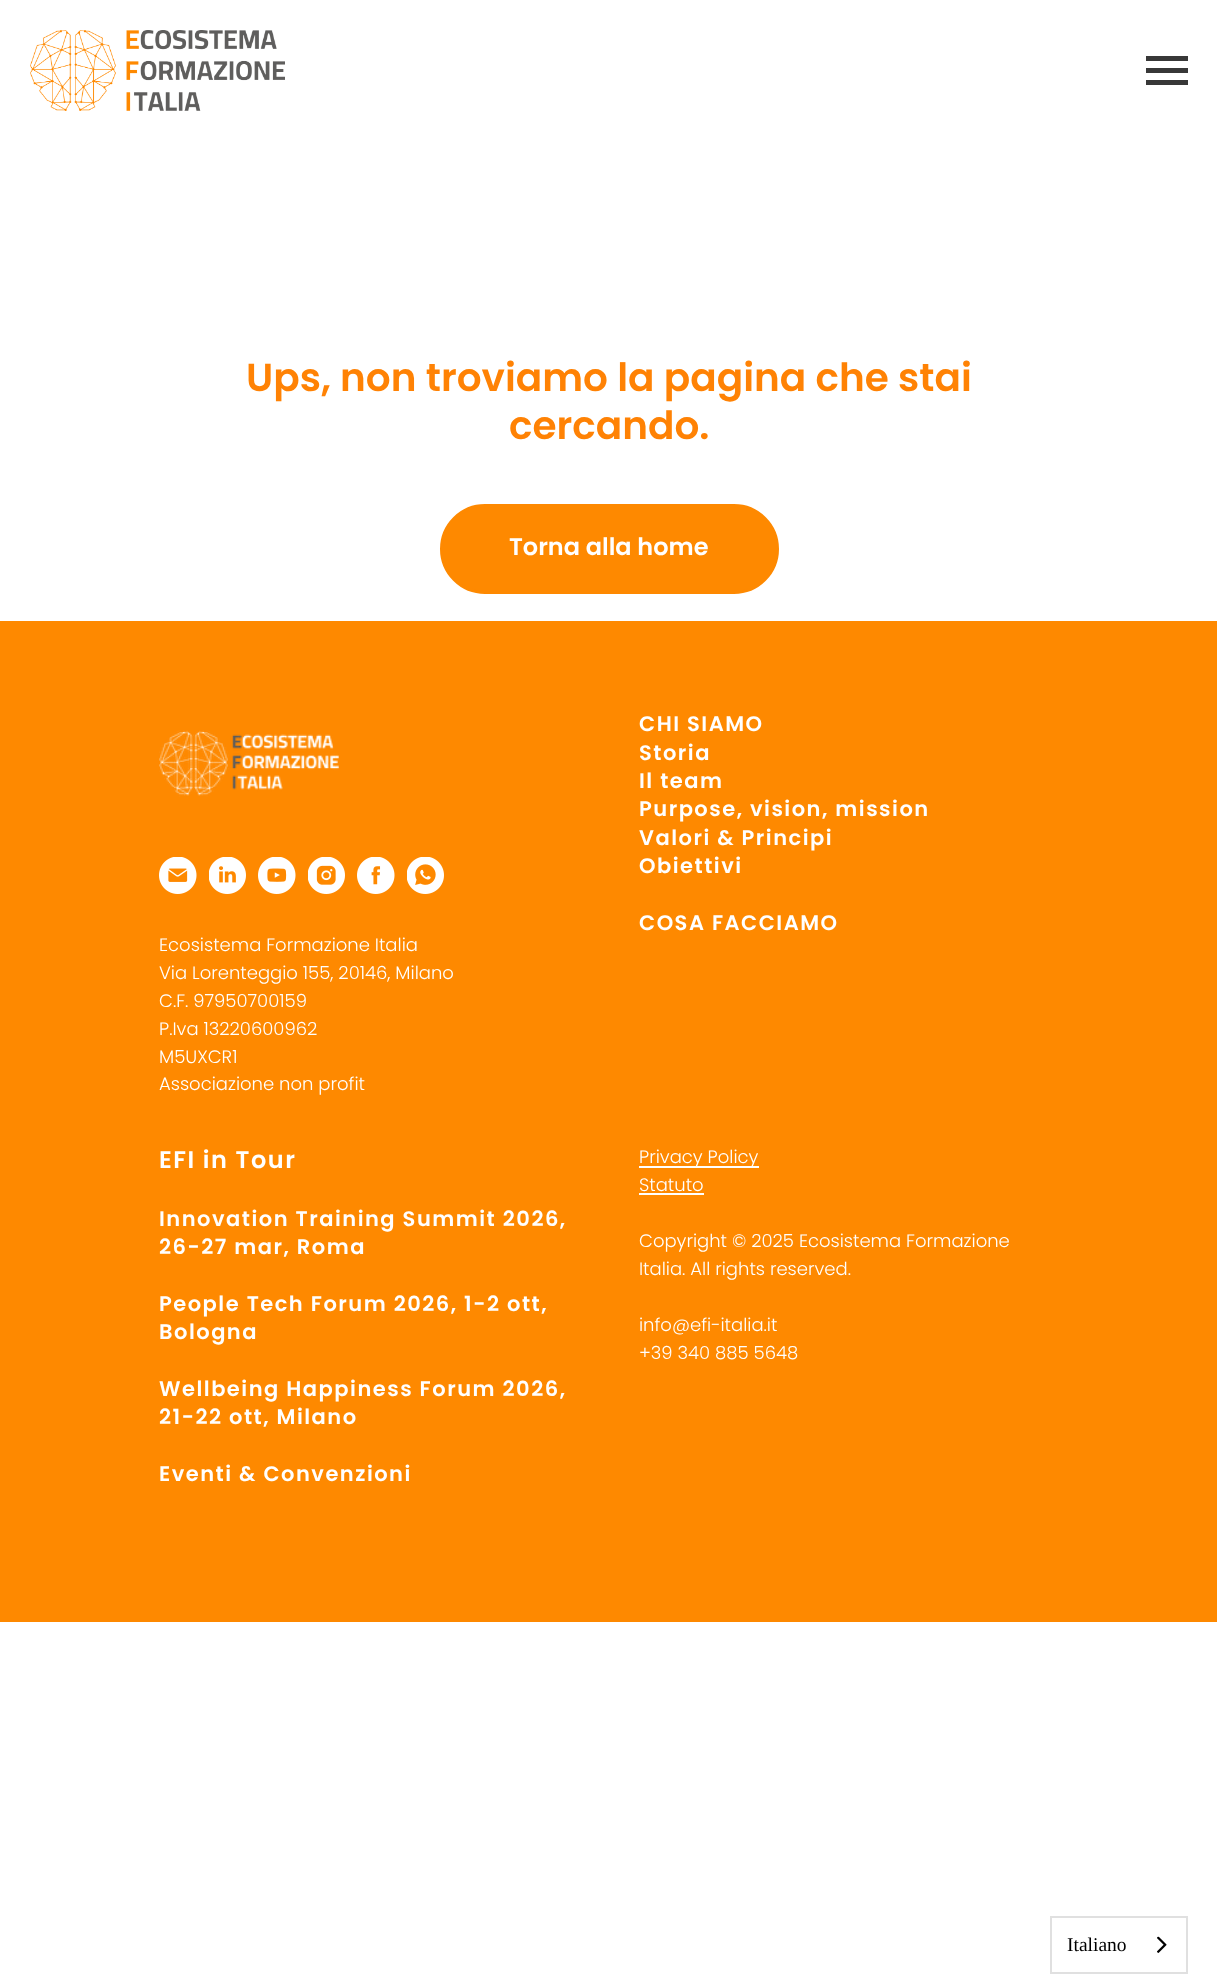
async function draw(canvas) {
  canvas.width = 1217
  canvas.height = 1974
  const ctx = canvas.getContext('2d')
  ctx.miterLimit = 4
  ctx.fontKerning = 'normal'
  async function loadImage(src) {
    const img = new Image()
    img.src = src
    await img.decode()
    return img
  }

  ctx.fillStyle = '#fff'
  ctx.fillRect(0, 0, 1217, 1974)
  ctx.drawImage(await loadImage('image0.png'), 30, 30, 255, 81)
  ctx.fillStyle = '#383838'
  ctx.fillRect(1146, 56, 42, 5)
  ctx.fillRect(1146, 68, 42, 5)
  ctx.fillRect(1146, 80, 42, 5)
  ctx.font = '600 39px Poppins'
  ctx.fillStyle = '#ff8204'
  ctx.fillText('Ups, non troviamo la pagina che stai', 246, 391)
  ctx.fillText('cercando.', 509, 439)
  ctx.fillStyle = '#fe8900'
  ctx.beginPath()
  ctx.roundRect(441.5, 505.5, 336, 87, 43.5)
  ctx.fill()
  ctx.strokeStyle = '#fe8900'
  ctx.lineWidth = 3
  ctx.stroke()
  ctx.font = '600 24px Poppins'
  ctx.fillStyle = '#fff'
  ctx.fillText('Torna alla home', 509, 555)
  ctx.fillStyle = '#fe8900'
  ctx.fillRect(0, 621, 1217, 1001)
  ctx.letterSpacing = '1.5px'
  ctx.font = '600 21px Poppins'
  ctx.fillStyle = '#fff'
  ctx.fillText('CHI SIAMO', 639, 731)
  ctx.fillText('Storia', 639, 760)
  ctx.fillText('Il team', 639, 788)
  ctx.fillText('Purpose, vision, mission', 639, 816)
  ctx.fillText('Valori & Principi', 639, 845)
  ctx.fillText('Obiettivi', 639, 873)
  ctx.fillText('COSA FACCIAMO', 639, 930)
  ctx.drawImage(await loadImage('image1.png'), 159, 730, 180, 67)
  ctx.drawImage(await loadImage('image2.png'), 159, 857, 38, 37)
  ctx.drawImage(await loadImage('image3.png'), 209, 857, 37, 37)
  ctx.drawImage(await loadImage('image4.png'), 258, 857, 38, 37)
  ctx.drawImage(await loadImage('image5.png'), 308, 857, 37, 37)
  ctx.drawImage(await loadImage('image6.png'), 357, 857, 38, 37)
  ctx.drawImage(await loadImage('image7.png'), 407, 857, 37, 37)
  ctx.letterSpacing = '0px'
  ctx.font = '300 18px Poppins'
  ctx.fillText('Ecosistema Formazione Italia', 159, 951)
  ctx.fillText('Via Lorenteggio 155, 20146, Milano', 159, 979)
  ctx.fillText('C.F. 97950700159', 159, 1007)
  ctx.fillText('P.Iva 13220600962', 159, 1035)
  ctx.fillText('M5UXCR1', 159, 1063)
  ctx.fillText('Associazione non profit', 159, 1090)
  ctx.letterSpacing = '1.5px'
  ctx.font = '600 24px Poppins'
  ctx.fillText('EFI in Tour', 159, 1168)
  ctx.font = '600 21px Poppins'
  ctx.fillText('Innovation Training Summit 2026,', 159, 1226)
  ctx.fillText('26-27 mar, Roma', 159, 1254)
  ctx.fillText('People Tech Forum 2026, 1-2 ott,', 159, 1311)
  ctx.fillText('Bologna', 159, 1339)
  ctx.fillText('Wellbeing Happiness Forum 2026,', 159, 1396)
  ctx.fillText('21-22 ott, Milano', 159, 1424)
  ctx.fillText('Eventi & Convenzioni', 159, 1481)
  ctx.fillRect(639, 1166, 120, 2)
  ctx.letterSpacing = '0px'
  ctx.font = '300 18px Poppins'
  ctx.fillText('Privacy Policy', 639, 1163)
  ctx.fillText('Statuto', 639, 1191)
  ctx.fillRect(639, 1193, 65, 2)
  ctx.fillText('Copyright © 2025 Ecosistema Formazione', 639, 1247)
  ctx.fillText('Italia. All rights reserved.', 639, 1275)
  ctx.fillText('info@efi-italia.it', 639, 1331)
  ctx.fillText('+39 340 885 5648', 639, 1359)
  ctx.strokeStyle = '#e0e0e0'
  ctx.lineWidth = 2
  ctx.strokeRect(1051, 1917, 136, 56)
  ctx.font = '19.5px Liberation Serif'
  ctx.fillStyle = '#000'
  ctx.fillText('Italiano', 1067, 1951)
  ctx.drawImage(await loadImage('image8.png'), 1157, 1936, 10, 17)
}

draw(document.querySelector('canvas'))
